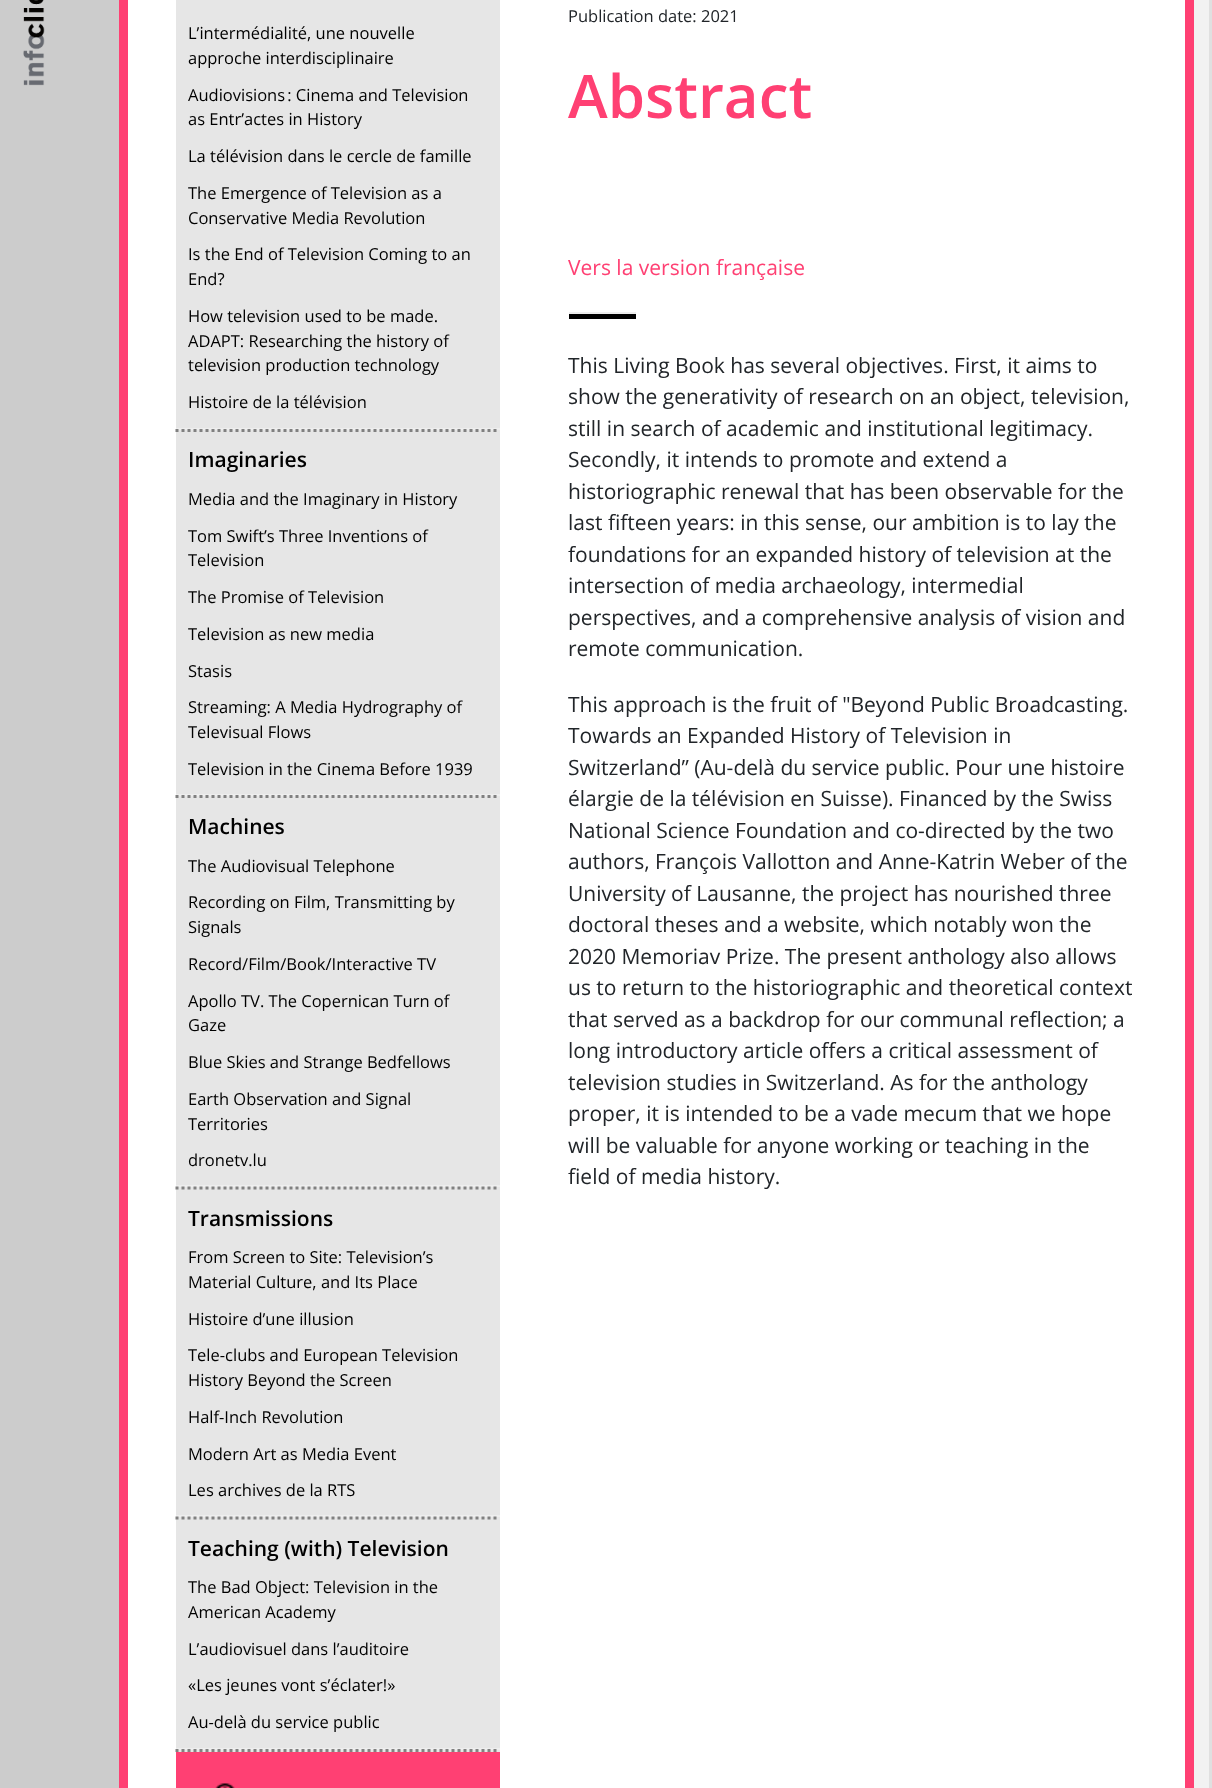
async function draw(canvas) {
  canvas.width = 1212
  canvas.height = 1788
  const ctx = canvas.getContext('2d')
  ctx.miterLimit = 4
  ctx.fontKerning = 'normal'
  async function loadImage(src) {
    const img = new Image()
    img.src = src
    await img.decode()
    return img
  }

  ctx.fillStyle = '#ccc'
  ctx.fillRect(0, 0, 1212, 1788)
  ctx.drawImage(await loadImage('image0.png'), 23, 0, 22, 86)
  ctx.fillStyle = '#e0e0e0'
  ctx.beginPath()
  ctx.moveTo(149, -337)
  ctx.lineTo(149, -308)
  ctx.lineTo(1194, -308)
  ctx.lineTo(1194, 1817)
  ctx.lineTo(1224, 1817)
  ctx.lineTo(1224, -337)
  ctx.closePath()
  ctx.fill()
  ctx.fillStyle = '#f2f2f2'
  ctx.beginPath()
  ctx.moveTo(134, -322)
  ctx.lineTo(134, -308)
  ctx.lineTo(1194, -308)
  ctx.lineTo(1194, 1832)
  ctx.lineTo(1209, 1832)
  ctx.lineTo(1209, -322)
  ctx.closePath()
  ctx.fill()
  ctx.fillStyle = '#fff'
  ctx.beginPath()
  ctx.rect(123.5, -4.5, 1066, 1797)
  ctx.fill()
  ctx.strokeStyle = '#ff4073'
  ctx.lineWidth = 9
  ctx.stroke()
  ctx.fillStyle = '#ff4073'
  ctx.fillRect(176, 1752, 324, 36)
  ctx.fillStyle = '#e6e6e6'
  ctx.fillRect(176, 0, 324, 1752)
  ctx.font = '16.5px Open Sans'
  ctx.fillStyle = '#000'
  ctx.fillText('L’intermédialité, une nouvelle', 188, 39)
  ctx.fillText('approche interdisciplinaire', 188, 64)
  ctx.fillText('Audiovisions : Cinema and Television', 188, 101)
  ctx.fillText('as Entr’actes in History', 188, 125)
  ctx.fillText('La télévision dans le cercle de famille', 188, 162)
  ctx.fillText('The Emergence of Television as a', 188, 199)
  ctx.fillText('Conservative Media Revolution', 188, 224)
  ctx.fillText('Is the End of Television Coming to an', 188, 260)
  ctx.fillText('End?', 188, 285)
  ctx.fillText('How television used to be made.', 188, 322)
  ctx.fillText('ADAPT: Researching the history of', 188, 347)
  ctx.fillText('television production technology', 188, 371)
  ctx.fillText('Histoire de la télévision', 188, 408)
  ctx.fillStyle = '#eee'
  ctx.fillRect(176, 428, 324, 2)
  ctx.beginPath()
  ctx.moveTo(175.5, 430.5)
  ctx.lineTo(499.5, 430.5)
  ctx.strokeStyle = '#808080'
  ctx.lineWidth = 3
  ctx.setLineDash([3, 3])
  ctx.stroke()
  ctx.font = '600 21px Open Sans'
  ctx.fillStyle = '#000'
  ctx.fillText('Imaginaries', 188, 467)
  ctx.font = '16.5px Open Sans'
  ctx.fillText('Media and the Imaginary in History', 188, 505)
  ctx.fillText('Tom Swift’s Three Inventions of', 188, 542)
  ctx.fillText('Television', 188, 566)
  ctx.fillText('The Promise of Television', 188, 603)
  ctx.fillText('Television as new media', 188, 640)
  ctx.fillText('Stasis', 188, 677)
  ctx.fillText('Streaming: A Media Hydrography of', 188, 713)
  ctx.fillText('Televisual Flows', 188, 738)
  ctx.fillText('Television in the Cinema Before 1939', 188, 775)
  ctx.fillStyle = '#eee'
  ctx.fillRect(176, 794, 324, 2)
  ctx.beginPath()
  ctx.moveTo(175.5, 796.5)
  ctx.lineTo(499.5, 796.5)
  ctx.stroke()
  ctx.font = '600 21px Open Sans'
  ctx.fillStyle = '#000'
  ctx.fillText('Machines', 188, 834)
  ctx.font = '16.5px Open Sans'
  ctx.fillText('The Audiovisual Telephone', 188, 872)
  ctx.fillText('Recording on Film, Transmitting by', 188, 908)
  ctx.fillText('Signals', 188, 933)
  ctx.fillText('Record/Film/Book/Interactive TV', 188, 970)
  ctx.fillText('Apollo TV. The Copernican Turn of', 188, 1007)
  ctx.fillText('Gaze', 188, 1031)
  ctx.fillText('Blue Skies and Strange Bedfellows', 188, 1068)
  ctx.fillText('Earth Observation and Signal', 188, 1105)
  ctx.fillText('Territories', 188, 1130)
  ctx.fillText('dronetv.lu', 188, 1166)
  ctx.fillStyle = '#eee'
  ctx.fillRect(176, 1185, 324, 2)
  ctx.beginPath()
  ctx.moveTo(175.5, 1188)
  ctx.lineTo(499.5, 1188)
  ctx.stroke()
  ctx.font = '600 21px Open Sans'
  ctx.fillStyle = '#000'
  ctx.fillText('Transmissions', 188, 1226)
  ctx.font = '16.5px Open Sans'
  ctx.fillText('From Screen to Site: Television’s', 188, 1263)
  ctx.fillText('Material Culture, and Its Place', 188, 1288)
  ctx.fillText('Histoire d’une illusion', 188, 1325)
  ctx.fillText('Tele-clubs and European Television', 188, 1361)
  ctx.fillText('History Beyond the Screen', 188, 1386)
  ctx.fillText('Half-Inch Revolution', 188, 1423)
  ctx.fillText('Modern Art as Media Event', 188, 1460)
  ctx.fillText('Les archives de la RTS', 188, 1496)
  ctx.fillStyle = '#eee'
  ctx.fillRect(176, 1515, 324, 2)
  ctx.beginPath()
  ctx.moveTo(175.5, 1518)
  ctx.lineTo(499.5, 1518)
  ctx.stroke()
  ctx.font = '600 21px Open Sans'
  ctx.fillStyle = '#000'
  ctx.fillText('Teaching (with) Television', 188, 1556)
  ctx.font = '16.5px Open Sans'
  ctx.fillText('The Bad Object: Television in the', 188, 1593)
  ctx.fillText('American Academy', 188, 1618)
  ctx.fillText('L’audiovisuel dans l’auditoire', 188, 1655)
  ctx.fillText('«Les jeunes vont s’éclater!»', 188, 1691)
  ctx.fillText('Au-delà du service public', 188, 1728)
  ctx.fillStyle = '#eee'
  ctx.fillRect(176, 1748, 324, 2)
  ctx.beginPath()
  ctx.moveTo(175.5, 1750.5)
  ctx.lineTo(499.5, 1750.5)
  ctx.stroke()
  ctx.drawImage(await loadImage('image1.png'), 215, 1783, 20, 5)
  ctx.fillStyle = '#212529'
  ctx.fillText('Publication date: 2021', 568, 22)
  ctx.font = '600 60px Open Sans'
  ctx.fillStyle = '#ff4073'
  ctx.fillText('Abstract', 568, 118)
  ctx.font = '21px Open Sans'
  ctx.fillText('Vers la version française', 568, 275)
  ctx.fillStyle = '#eee'
  ctx.fillRect(569, 312, 67, 2)
  ctx.fillStyle = '#000'
  ctx.fillRect(569, 314, 67, 5)
  ctx.fillStyle = '#212529'
  ctx.fillText('This Living Book has several objectives. First, it aims to', 568, 373)
  ctx.fillText('show the generativity of research on an object, television,', 568, 404)
  ctx.fillText('still in search of academic and institutional legitimacy.', 568, 436)
  ctx.fillText('Secondly, it intends to promote and extend a', 568, 467)
  ctx.fillText('historiographic renewal that has been observable for the', 568, 499)
  ctx.fillText('last fifteen years: in this sense, our ambition is to lay the', 568, 530)
  ctx.fillText('foundations for an expanded history of television at the', 568, 562)
  ctx.fillText('intersection of media archaeology, intermedial', 568, 593)
  ctx.fillText('perspectives, and a comprehensive analysis of vision and', 568, 625)
  ctx.fillText('remote communication.', 568, 656)
  ctx.fillText('This approach is the fruit of "Beyond Public Broadcasting.', 568, 712)
  ctx.fillText('Towards an Expanded History of Television in', 568, 743)
  ctx.fillText('Switzerland” (Au-delà du service public. Pour une histoire', 568, 775)
  ctx.fillText('élargie de la télévision en Suisse). Financed by the Swiss', 568, 806)
  ctx.fillText('National Science Foundation and co-directed by the two', 568, 838)
  ctx.fillText('authors, François Vallotton and Anne-Katrin Weber of the', 568, 869)
  ctx.fillText('University of Lausanne, the project has nourished three', 568, 901)
  ctx.fillText('doctoral theses and a website, which notably won the', 568, 932)
  ctx.fillText('2020 Memoriav Prize. The present anthology also allows', 568, 964)
  ctx.fillText('us to return to the historiographic and theoretical context', 568, 995)
  ctx.fillText('that served as a backdrop for our communal reflection; a', 568, 1027)
  ctx.fillText('long introductory article offers a critical assessment of', 568, 1058)
  ctx.fillText('television studies in Switzerland. As for the anthology', 568, 1090)
  ctx.fillText('proper, it is intended to be a vade mecum that we hope', 568, 1121)
  ctx.fillText('will be valuable for anyone working or teaching in the', 568, 1153)
  ctx.fillText('field of media history.', 568, 1184)
}

draw(document.querySelector('canvas'))
